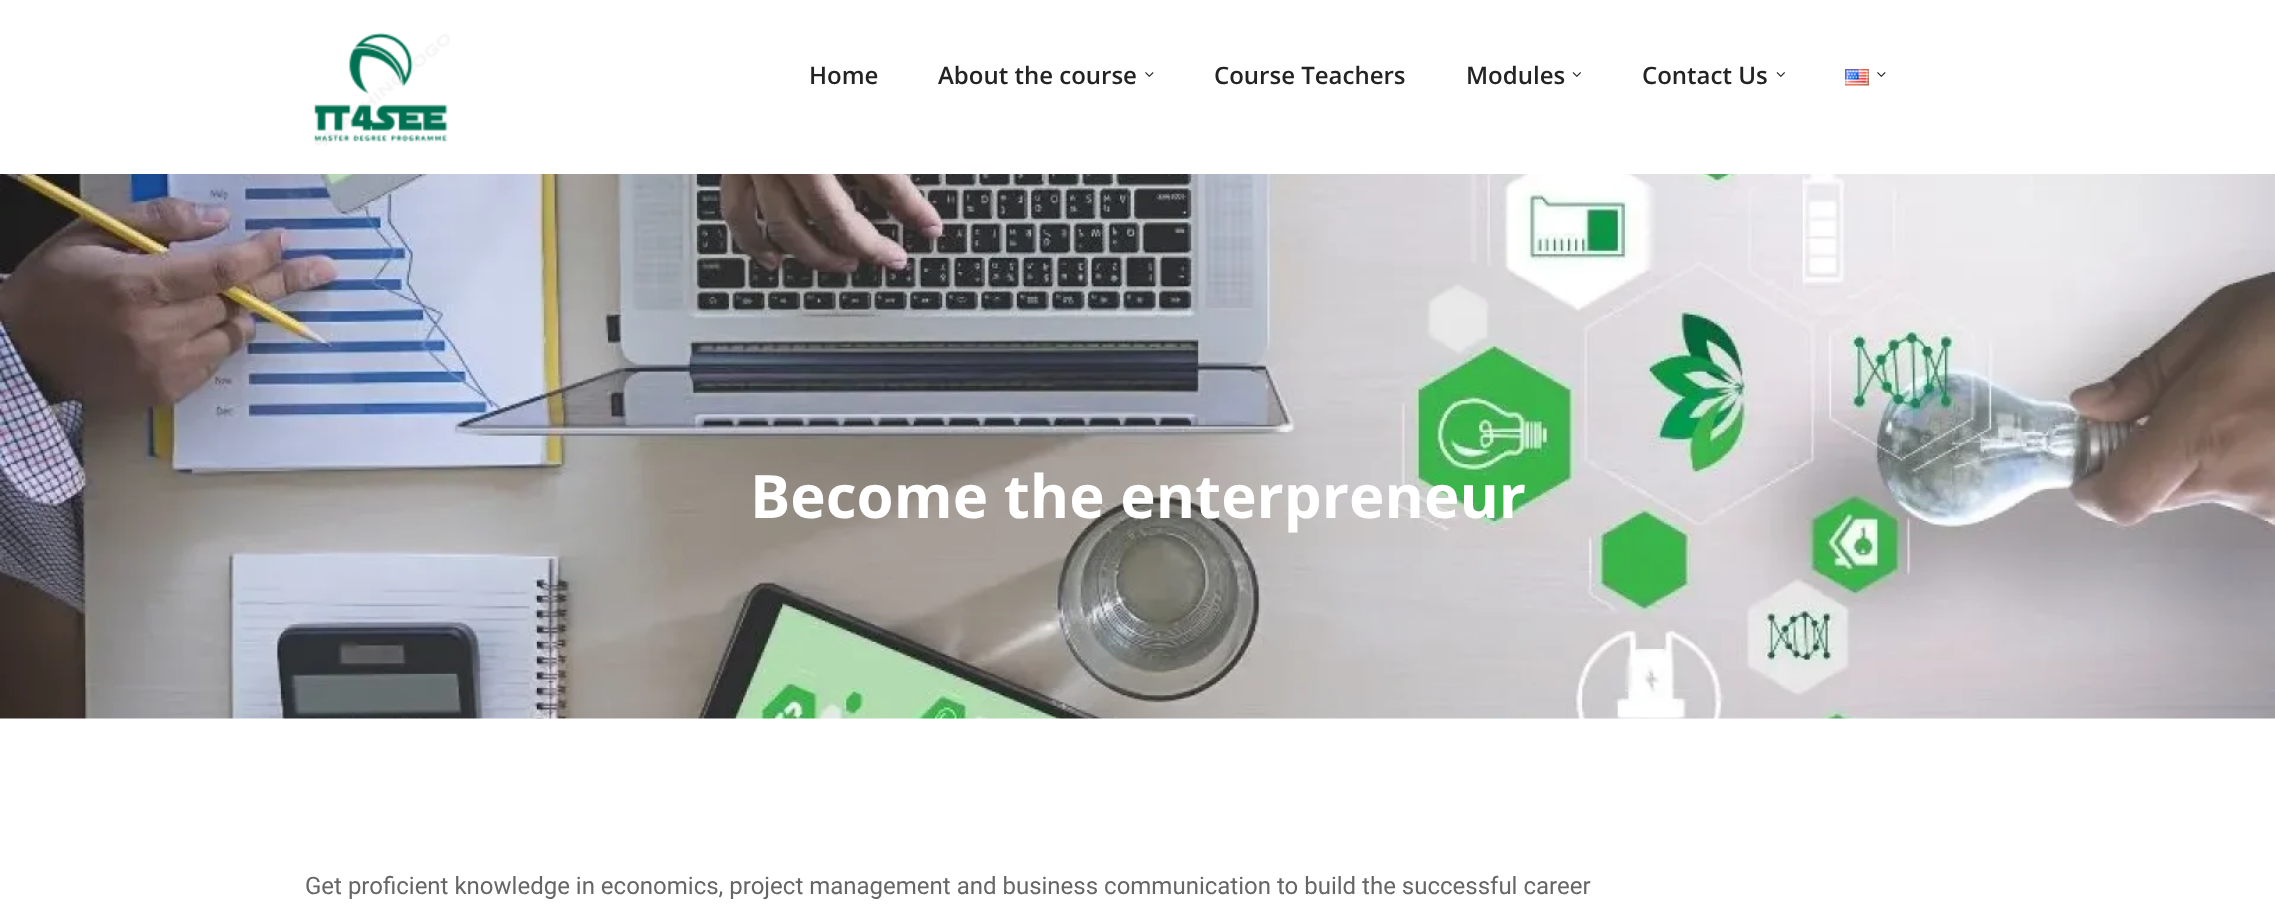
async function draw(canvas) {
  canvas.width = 2275
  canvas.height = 905
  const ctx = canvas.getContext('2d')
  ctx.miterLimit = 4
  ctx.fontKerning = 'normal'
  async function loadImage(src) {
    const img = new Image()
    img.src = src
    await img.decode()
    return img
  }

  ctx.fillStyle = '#fff'
  ctx.fillRect(0, 0, 2275, 905)
  ctx.drawImage(await loadImage('image0.png'), 313, 32, 137, 114)
  ctx.font = '600 24px Open Sans'
  ctx.fillStyle = '#232323'
  ctx.fillText('Home', 809, 84)
  ctx.fillText('About the course', 938, 84)
  ctx.drawImage(await loadImage('image1.png'), 1145, 72, 9, 5)
  ctx.fillText('Course Teachers', 1214, 84)
  ctx.fillText('Modules', 1466, 84)
  ctx.drawImage(await loadImage('image2.png'), 1572, 72, 9, 5)
  ctx.fillText('Contact Us', 1642, 84)
  ctx.drawImage(await loadImage('image2.png'), 1776, 72, 9, 5)
  ctx.drawImage(await loadImage('image3.png'), 1845, 69, 24, 17)
  ctx.drawImage(await loadImage('image1.png'), 1877, 72, 9, 5)
  ctx.drawImage(await loadImage('image4.png'), 0, 174, 2275, 545)
  ctx.font = 'bold 60px Open Sans'
  ctx.fillStyle = '#fff'
  ctx.fillText('Become the enterpreneur', 750, 518)
  ctx.font = '24px Roboto'
  ctx.fillStyle = '#666'
  ctx.fillText('Get proficient knowledge in economics, project management and business communication to build the successful career', 305, 894)
}

draw(document.querySelector('canvas'))
